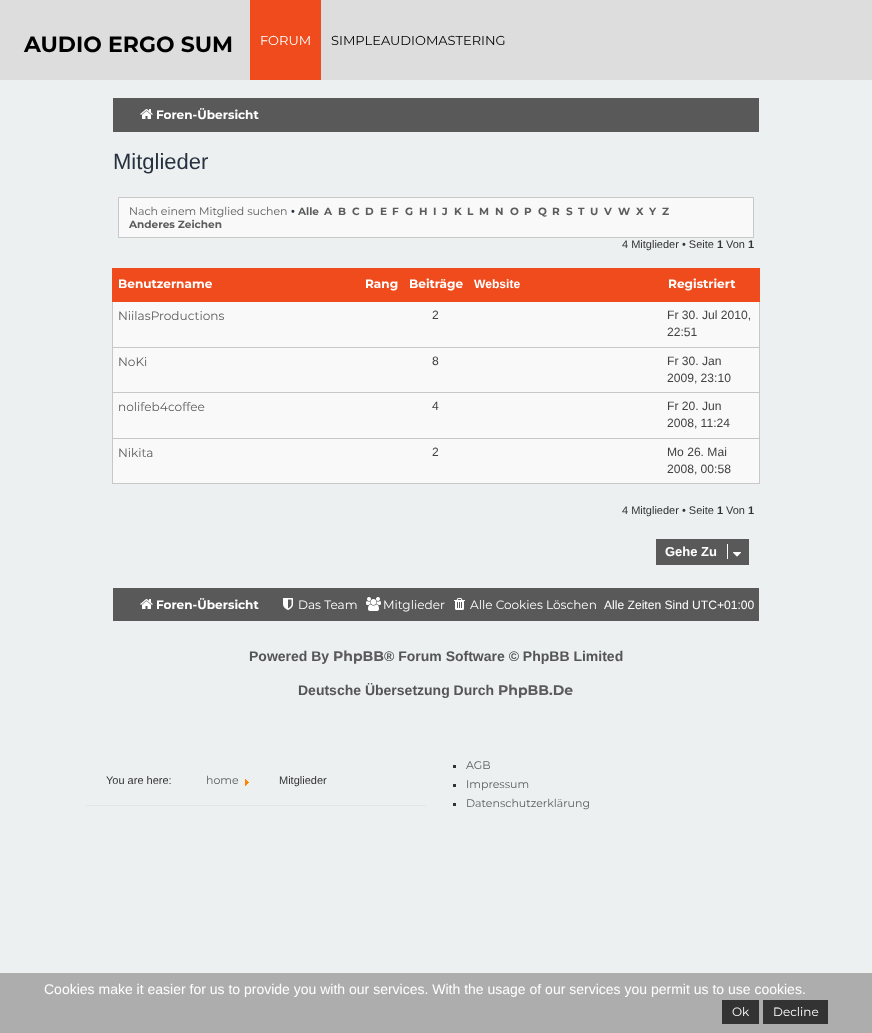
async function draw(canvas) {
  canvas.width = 872
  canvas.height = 1033
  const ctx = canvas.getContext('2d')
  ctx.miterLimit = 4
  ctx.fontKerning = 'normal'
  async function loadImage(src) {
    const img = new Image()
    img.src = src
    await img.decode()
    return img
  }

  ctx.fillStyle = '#ecf0f1'
  ctx.fillRect(0, 0, 872, 1033)
  ctx.fillStyle = '#ddd'
  ctx.fillRect(0, 0, 872, 80)
  ctx.font = 'bold 22px Montserrat'
  ctx.fillStyle = '#000'
  ctx.fillText('AUDIO ERGO SUM', 24, 52)
  ctx.fillStyle = '#ef4b1d'
  ctx.fillRect(250, 0, 71, 80)
  ctx.font = '13px Montserrat'
  ctx.fillStyle = '#fff'
  ctx.fillText('FORUM', 260, 45)
  ctx.fillStyle = '#000'
  ctx.fillText('SIMPLEAUDIOMASTERING', 331, 45)
  ctx.fillStyle = '#595959'
  ctx.fillRect(113, 98, 646, 34)
  ctx.drawImage(await loadImage('image0.png'), 140, 109, 13, 10)
  ctx.font = 'bold 12.1px Montserrat'
  ctx.fillStyle = '#fff'
  ctx.fillText('Foren-Übersicht', 156, 119)
  ctx.font = '22px Liberation Sans'
  ctx.fillStyle = '#28313f'
  ctx.fillText('Mitglieder', 113, 169)
  ctx.fillStyle = '#f9f9f9'
  ctx.beginPath()
  ctx.rect(118.5, 197.5, 635, 40)
  ctx.fill()
  ctx.strokeStyle = '#c7c7c7'
  ctx.stroke()
  ctx.font = '11px Montserrat'
  ctx.fillStyle = '#5c5c5c'
  ctx.fillText('Nach einem Mitglied suchen', 129, 215)
  ctx.font = 'bold 10.5px Montserrat'
  ctx.fillText('Alle', 298, 215)
  ctx.fillText('A', 324, 215)
  ctx.fillText('B', 338, 215)
  ctx.fillText('C', 352, 215)
  ctx.fillText('D', 365, 215)
  ctx.fillText('E', 380, 215)
  ctx.fillText('F', 392, 215)
  ctx.fillText('G', 405, 215)
  ctx.fillText('H', 419, 215)
  ctx.fillText('I', 433, 215)
  ctx.fillText('J', 442, 215)
  ctx.fillText('K', 454, 215)
  ctx.fillText('L', 467, 215)
  ctx.fillText('M', 479, 215)
  ctx.fillText('N', 495, 215)
  ctx.fillText('O', 510, 215)
  ctx.fillText('P', 524, 215)
  ctx.fillText('Q', 538, 215)
  ctx.fillText('R', 552, 215)
  ctx.fillText('S', 566, 215)
  ctx.fillText('T', 578, 215)
  ctx.fillText('U', 590, 215)
  ctx.fillText('V', 604, 215)
  ctx.fillText('W', 618, 215)
  ctx.fillText('X', 636, 215)
  ctx.fillText('Y', 649, 215)
  ctx.fillText('Z', 662, 215)
  ctx.fillText('Anderes Zeichen', 129, 228)
  ctx.font = '11px Liberation Sans'
  ctx.fillStyle = '#28313f'
  ctx.fillText('•', 291, 215)
  ctx.fillStyle = '#333'
  ctx.fillText('4 Mitglieder • Seite', 622, 248)
  ctx.font = 'bold 11px Liberation Sans'
  ctx.fillText('1', 717, 248)
  ctx.font = '11px Liberation Sans'
  ctx.fillText('Von', 726, 248)
  ctx.font = 'bold 11px Liberation Sans'
  ctx.fillText('1', 748, 248)
  ctx.fillStyle = '#ef4b1d'
  ctx.fillRect(113, 268, 646, 33)
  ctx.fillStyle = '#c7c7c7'
  ctx.fillRect(112, 347, 648, 1)
  ctx.fillRect(112, 392, 648, 1)
  ctx.fillRect(112, 438, 648, 1)
  ctx.fillRect(759, 438, 1, 46)
  ctx.fillRect(759, 392, 1, 47)
  ctx.fillRect(759, 301, 1, 92)
  ctx.fillStyle = '#ef4b1d'
  ctx.fillRect(759, 268, 1, 34)
  ctx.fillStyle = '#c7c7c7'
  ctx.fillRect(112, 483, 648, 1)
  ctx.fillRect(112, 438, 1, 46)
  ctx.fillRect(112, 392, 1, 47)
  ctx.fillRect(112, 301, 1, 92)
  ctx.fillStyle = '#ef4b1d'
  ctx.fillRect(112, 301, 648, 1)
  ctx.fillRect(112, 268, 1, 34)
  ctx.font = 'bold 12.1px Montserrat'
  ctx.fillStyle = '#fff'
  ctx.fillText('Benutzername', 118, 288)
  ctx.fillText('Rang', 365, 288)
  ctx.fillText('Beiträge', 409, 288)
  ctx.font = 'bold 12.1px Liberation Sans'
  ctx.fillText('Website', 474, 288)
  ctx.font = 'bold 12.1px Montserrat'
  ctx.fillText('Registriert', 668, 288)
  ctx.fillStyle = '#f9f9f9'
  ctx.fillRect(113, 302, 646, 45)
  ctx.font = '12.1px Montserrat'
  ctx.fillStyle = '#5c5c5c'
  ctx.fillText('NiilasProductions', 118, 320)
  ctx.font = '12.1px Liberation Sans'
  ctx.fillStyle = '#424242'
  ctx.fillText('2', 432, 319)
  ctx.fillText('Fr 30. Jul 2010,', 667, 319)
  ctx.fillText('22:51', 667, 336)
  ctx.fillStyle = '#f9f9f9'
  ctx.fillRect(113, 348, 646, 44)
  ctx.font = '12.1px Montserrat'
  ctx.fillStyle = '#5c5c5c'
  ctx.fillText('NoKi', 118, 366)
  ctx.font = '12.1px Liberation Sans'
  ctx.fillStyle = '#424242'
  ctx.fillText('8', 432, 365)
  ctx.fillText('Fr 30. Jan', 667, 365)
  ctx.fillText('2009, 23:10', 667, 382)
  ctx.fillStyle = '#f9f9f9'
  ctx.fillRect(113, 393, 646, 45)
  ctx.font = '12.1px Montserrat'
  ctx.fillStyle = '#5c5c5c'
  ctx.fillText('nolifeb4coffee', 118, 411)
  ctx.font = '12.1px Liberation Sans'
  ctx.fillStyle = '#424242'
  ctx.fillText('4', 432, 410)
  ctx.fillText('Fr 20. Jun', 667, 410)
  ctx.fillText('2008, 11:24', 667, 427)
  ctx.fillStyle = '#f9f9f9'
  ctx.fillRect(113, 439, 646, 44)
  ctx.font = '12.1px Montserrat'
  ctx.fillStyle = '#5c5c5c'
  ctx.fillText('Nikita', 118, 457)
  ctx.font = '12.1px Liberation Sans'
  ctx.fillStyle = '#424242'
  ctx.fillText('2', 432, 456)
  ctx.fillText('Mo 26. Mai', 667, 456)
  ctx.fillText('2008, 00:58', 667, 473)
  ctx.font = '11px Liberation Sans'
  ctx.fillStyle = '#333'
  ctx.fillText('4 Mitglieder • Seite', 622, 514)
  ctx.font = 'bold 11px Liberation Sans'
  ctx.fillText('1', 717, 514)
  ctx.font = '11px Liberation Sans'
  ctx.fillText('Von', 726, 514)
  ctx.font = 'bold 11px Liberation Sans'
  ctx.fillText('1', 748, 514)
  ctx.fillStyle = '#595959'
  ctx.fillRect(656, 539, 93, 26)
  ctx.font = 'bold 13px Liberation Sans'
  ctx.fillStyle = '#fff'
  ctx.fillText('Gehe Zu', 665, 556)
  ctx.fillRect(727, 544, 1, 15)
  ctx.drawImage(await loadImage('image1.png'), 733, 552, 8, 5)
  ctx.fillStyle = '#595959'
  ctx.fillRect(113, 588, 646, 33)
  ctx.drawImage(await loadImage('image0.png'), 140, 599, 13, 10)
  ctx.font = 'bold 12.1px Montserrat'
  ctx.fillStyle = '#fff'
  ctx.fillText('Foren-Übersicht', 156, 609)
  ctx.drawImage(await loadImage('image2.png'), 283, 598, 10, 12)
  ctx.font = '12.1px Montserrat'
  ctx.fillText('Das Team', 298, 609)
  ctx.drawImage(await loadImage('image3.png'), 366, 597, 15, 14)
  ctx.fillText('Mitglieder', 383, 609)
  ctx.drawImage(await loadImage('image4.png'), 454, 598, 11, 12)
  ctx.fillText('Alle Cookies Löschen', 470, 609)
  ctx.font = '12.1px Liberation Sans'
  ctx.fillText('Alle Zeiten Sind UTC+01:00', 604, 609)
  ctx.font = 'bold 14px Liberation Sans'
  ctx.fillStyle = '#555'
  ctx.fillText('Powered By', 249, 661)
  ctx.font = 'bold 14px Montserrat'
  ctx.fillStyle = '#5c5c5c'
  ctx.fillText('PhpBB', 333, 661)
  ctx.font = 'bold 14px Liberation Sans'
  ctx.fillStyle = '#555'
  ctx.fillText('® Forum Software © PhpBB Limited', 384, 661)
  ctx.fillText('Deutsche Übersetzung Durch', 298, 695)
  ctx.font = 'bold 14px Montserrat'
  ctx.fillStyle = '#5c5c5c'
  ctx.fillText('PhpBB.De', 498, 695)
  ctx.fillStyle = '#e5e5e5'
  ctx.fillRect(86, 805, 340, 1)
  ctx.font = '11px Liberation Sans'
  ctx.fillStyle = '#333'
  ctx.fillText('You are here:', 106, 784)
  ctx.font = '11px Montserrat'
  ctx.fillStyle = '#5c5c5c'
  ctx.fillText('home', 206, 784)
  ctx.drawImage(await loadImage('image5.png'), 245, 779, 4, 7)
  ctx.font = '11px Liberation Sans'
  ctx.fillStyle = '#333'
  ctx.fillText('Mitglieder', 279, 784)
  ctx.fillRect(453, 765, 3, 3)
  ctx.font = '11px Montserrat'
  ctx.fillStyle = '#5c5c5c'
  ctx.fillText('AGB', 466, 769)
  ctx.fillStyle = '#333'
  ctx.fillRect(453, 784, 3, 3)
  ctx.fillStyle = '#5c5c5c'
  ctx.fillText('Impressum', 466, 788)
  ctx.fillStyle = '#333'
  ctx.fillRect(453, 803, 3, 3)
  ctx.fillStyle = '#5c5c5c'
  ctx.fillText('Datenschutzerklärung', 466, 807)
  ctx.fillStyle = '#adadad'
  ctx.fillRect(0, 973, 872, 60)
  ctx.font = '14px Liberation Sans'
  ctx.fillStyle = '#fff'
  ctx.fillText('Cookies make it easier for us to provide you with our services. With the usage of our services you permit us to use cookies.', 44, 994)
  ctx.fillStyle = '#333'
  ctx.fillRect(722, 1000, 37, 24)
  ctx.font = '12px Montserrat'
  ctx.fillStyle = '#fff'
  ctx.fillText('Ok', 732, 1016)
  ctx.fillStyle = '#333'
  ctx.fillRect(763, 1000, 65, 24)
  ctx.fillStyle = '#fff'
  ctx.fillText('Decline', 773, 1016)
}

draw(document.querySelector('canvas'))
